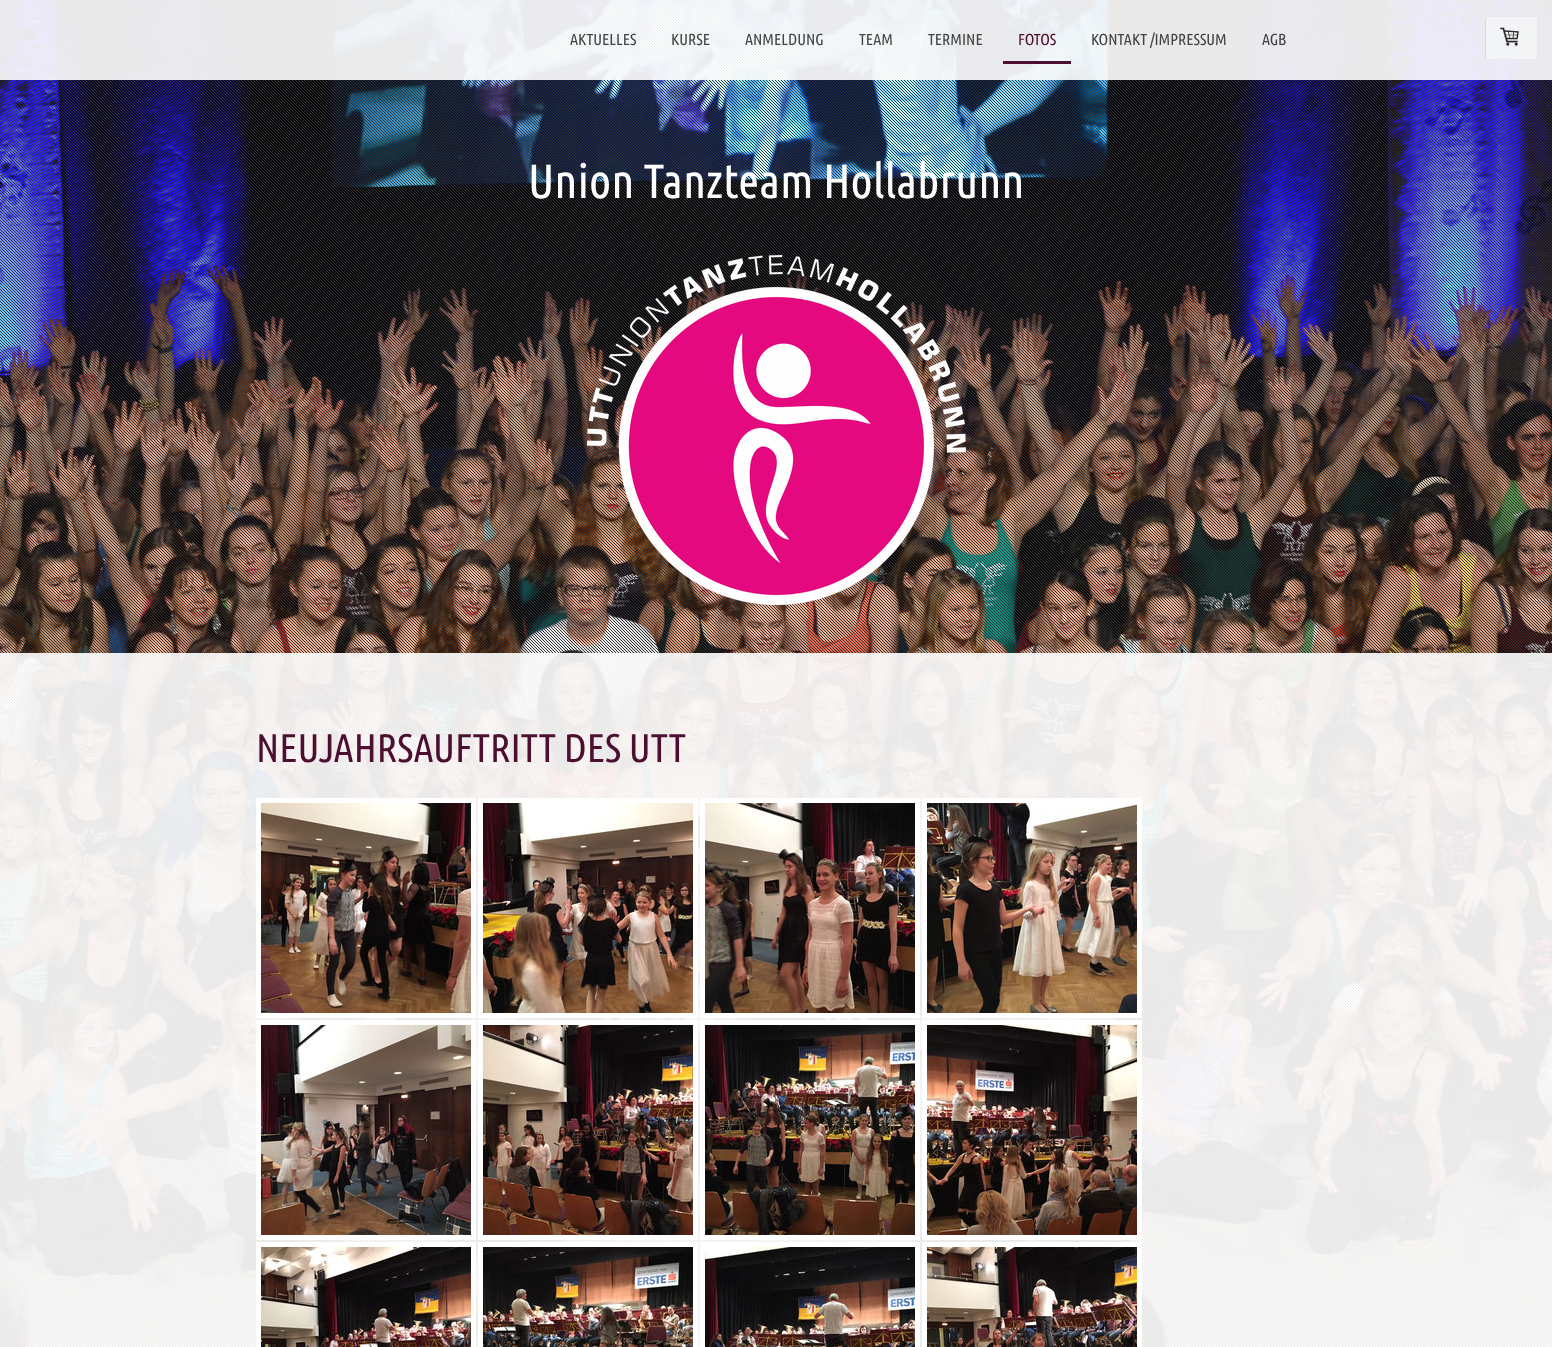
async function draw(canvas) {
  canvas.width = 1552
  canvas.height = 1347
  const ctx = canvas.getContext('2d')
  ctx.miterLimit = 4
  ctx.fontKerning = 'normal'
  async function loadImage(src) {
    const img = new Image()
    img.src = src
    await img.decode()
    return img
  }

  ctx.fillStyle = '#fff'
  ctx.fillRect(0, 0, 1552, 1347)
  ctx.drawImage(await loadImage('image0.png'), 0, 0, 1552, 1347)
  ctx.drawImage(await loadImage('image1.png'), 0, 0, 1552, 1347)
  ctx.fillStyle = '#ffffffe8'
  ctx.fillRect(0, 0, 1552, 80)
  ctx.font = '16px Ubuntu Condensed'
  ctx.fillStyle = '#444'
  ctx.fillText('AKTUELLES', 570, 45)
  ctx.fillText('KURSE', 671, 45)
  ctx.fillText('ANMELDUNG', 745, 45)
  ctx.fillText('TEAM', 859, 45)
  ctx.fillText('TERMINE', 928, 45)
  ctx.fillStyle = '#4d0f30'
  ctx.fillRect(1003, 61, 68, 3)
  ctx.fillText('FOTOS', 1018, 45)
  ctx.fillStyle = '#444'
  ctx.fillText('KONTAKT /IMPRESSUM', 1091, 45)
  ctx.fillText('AGB', 1262, 45)
  ctx.fillStyle = '#f7f8f8b3'
  ctx.beginPath()
  ctx.roundRect(1485, 17, 52, 42, 1)
  ctx.fill()
  ctx.fillStyle = '#0000001a'
  ctx.fillRect(1485, 18, 1, 41)
  ctx.drawImage(await loadImage('image2.png'), 1500, 27, 19, 19)
  ctx.font = '48px Ubuntu Condensed'
  ctx.fillStyle = '#fff'
  ctx.fillText('Union Tanzteam Hollabrunn', 528, 198)
  ctx.drawImage(await loadImage('image3.png'), 587, 255, 379, 350)
  ctx.fillStyle = '#ffffffe8'
  ctx.fillRect(0, 653, 1552, 694)
  ctx.font = '40px Ubuntu Condensed'
  ctx.fillStyle = '#4d0f30'
  ctx.fillText('NEUJAHRSAUFTRITT DES UTT', 256, 762)
  ctx.fillStyle = '#fff'
  ctx.fillRect(256, 798, 220, 220)
  ctx.drawImage(await loadImage('image4.png'), 261, 803, 210, 210)
  ctx.fillRect(478, 798, 220, 220)
  ctx.drawImage(await loadImage('image5.png'), 483, 803, 210, 210)
  ctx.fillRect(700, 798, 220, 220)
  ctx.drawImage(await loadImage('image6.png'), 705, 803, 210, 210)
  ctx.fillRect(922, 798, 220, 220)
  ctx.drawImage(await loadImage('image7.png'), 927, 803, 210, 210)
  ctx.fillRect(256, 1020, 220, 220)
  ctx.drawImage(await loadImage('image8.png'), 261, 1025, 210, 210)
  ctx.fillRect(478, 1020, 220, 220)
  ctx.drawImage(await loadImage('image9.png'), 483, 1025, 210, 210)
  ctx.fillRect(700, 1020, 220, 220)
  ctx.drawImage(await loadImage('image10.png'), 705, 1025, 210, 210)
  ctx.fillRect(922, 1020, 220, 220)
  ctx.drawImage(await loadImage('image11.png'), 927, 1025, 210, 210)
  ctx.fillRect(256, 1242, 220, 105)
  ctx.drawImage(await loadImage('image12.png'), 261, 1247, 210, 100)
  ctx.fillRect(478, 1242, 220, 105)
  ctx.drawImage(await loadImage('image13.png'), 483, 1247, 210, 100)
  ctx.fillRect(700, 1242, 220, 105)
  ctx.drawImage(await loadImage('image14.png'), 705, 1247, 210, 100)
  ctx.fillRect(922, 1242, 220, 105)
  ctx.drawImage(await loadImage('image15.png'), 927, 1247, 210, 100)
}

draw(document.querySelector('canvas'))
